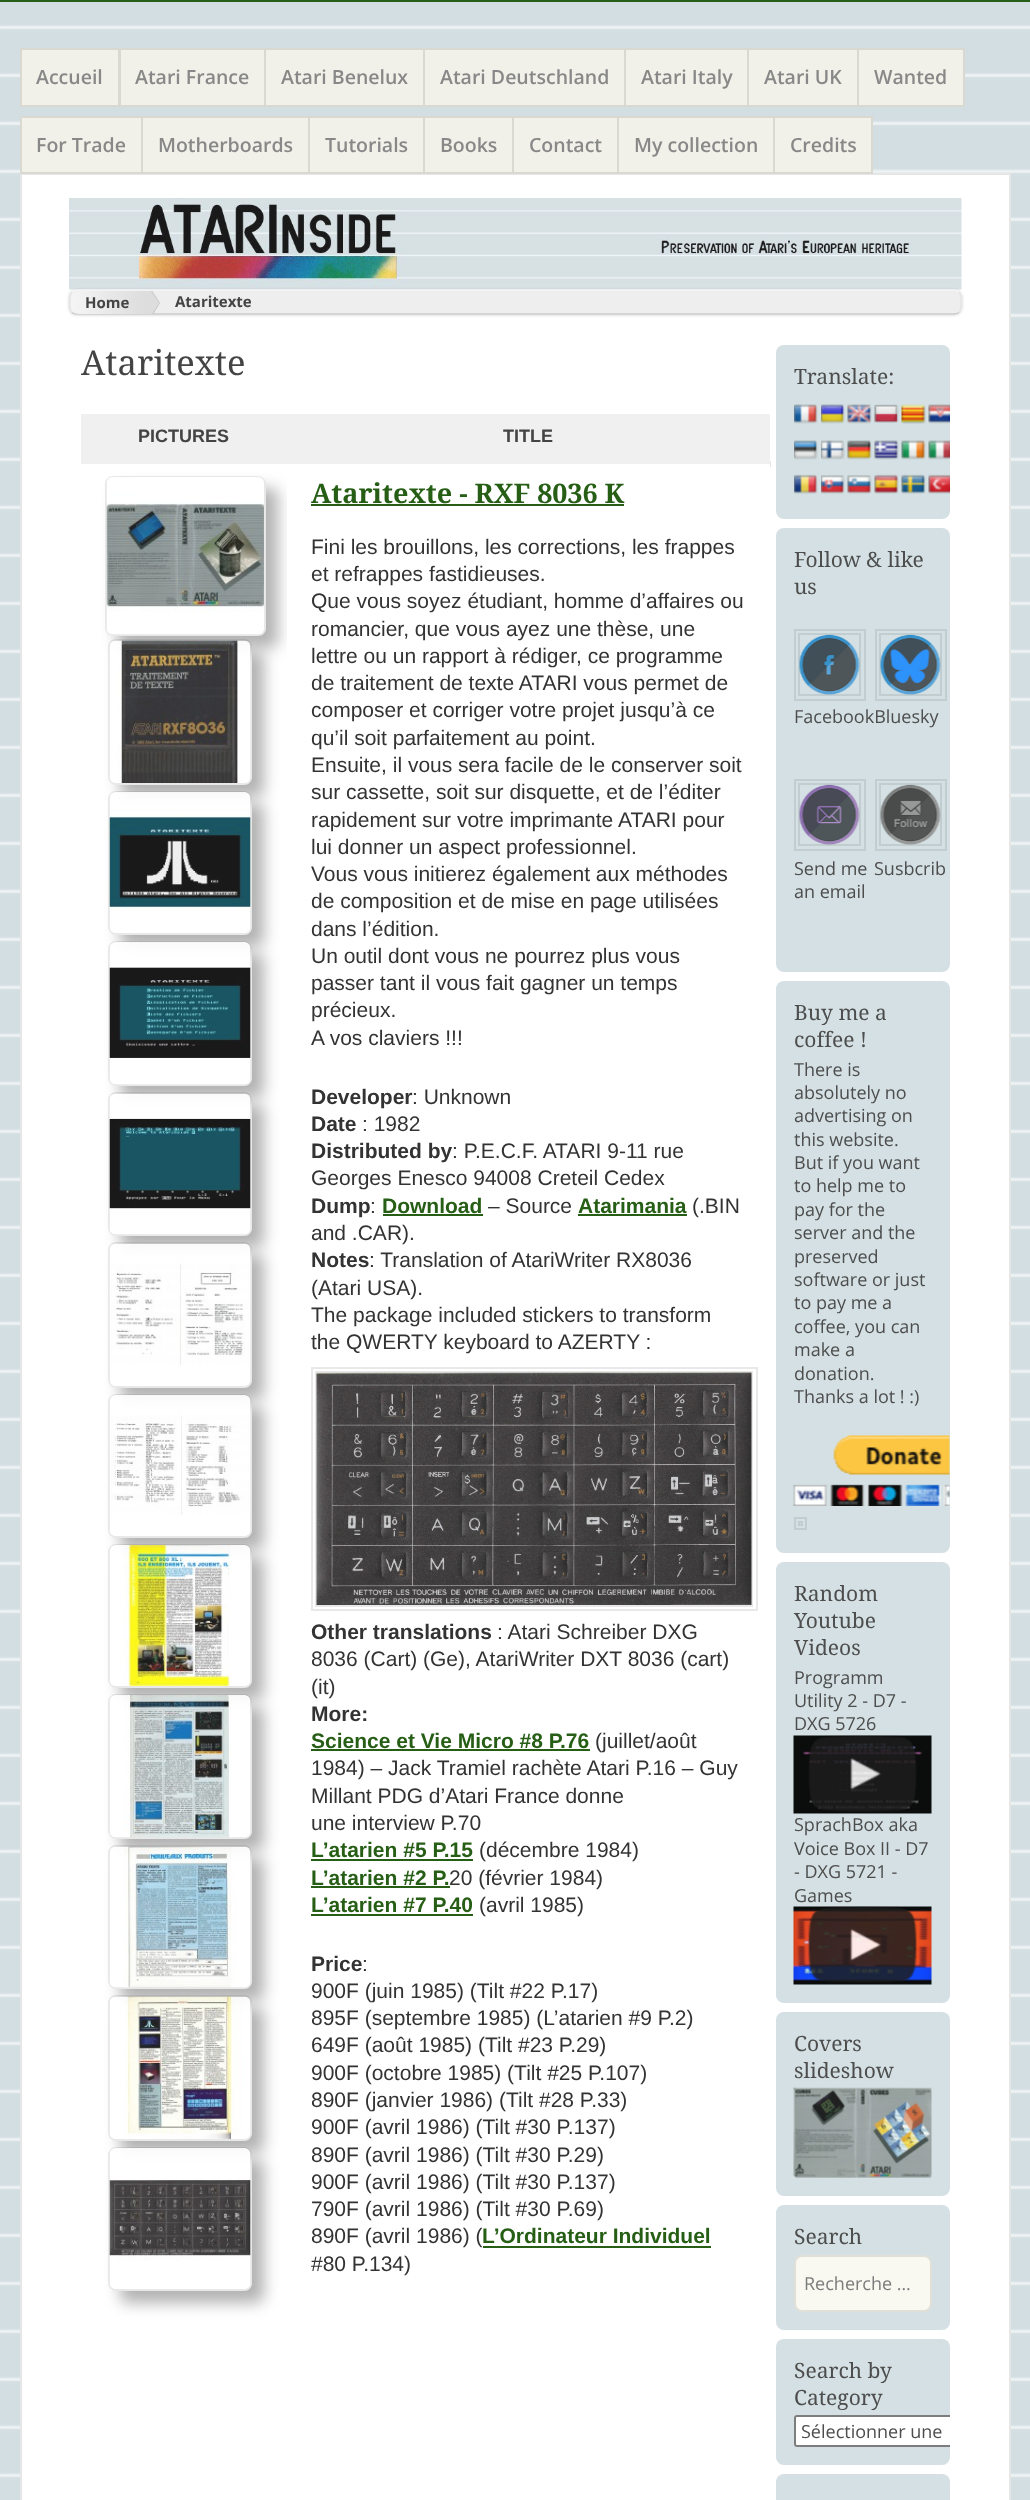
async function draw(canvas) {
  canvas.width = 1030
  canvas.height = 2500
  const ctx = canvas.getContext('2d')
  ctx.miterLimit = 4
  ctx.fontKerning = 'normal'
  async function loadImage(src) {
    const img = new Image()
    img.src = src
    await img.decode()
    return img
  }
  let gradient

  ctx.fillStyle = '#fff'
  ctx.fillRect(0, 0, 1030, 2500)
  ctx.drawImage(await loadImage('image0.png'), 0, 2, 1030, 2498)
  ctx.fillStyle = '#265e15'
  ctx.fillRect(0, 0, 1030, 2)
  ctx.fillStyle = '#f1f1e9'
  ctx.beginPath()
  ctx.rect(21, 49, 98, 57)
  ctx.fill()
  ctx.strokeStyle = '#d9d9d2'
  ctx.lineWidth = 2
  ctx.stroke()
  ctx.font = '600 19.5px Open Sans'
  ctx.fillStyle = '#888'
  ctx.fillText('Accueil', 36, 84)
  ctx.fillStyle = '#f1f1e9'
  ctx.beginPath()
  ctx.rect(120, 49, 145, 57)
  ctx.fill()
  ctx.stroke()
  ctx.fillStyle = '#888'
  ctx.fillText('Atari France', 135, 84)
  ctx.fillStyle = '#f1f1e9'
  ctx.beginPath()
  ctx.rect(265, 49, 159, 57)
  ctx.fill()
  ctx.stroke()
  ctx.fillStyle = '#888'
  ctx.fillText('Atari Benelux', 281, 84)
  ctx.fillStyle = '#f1f1e9'
  ctx.beginPath()
  ctx.rect(424, 49, 201, 57)
  ctx.fill()
  ctx.stroke()
  ctx.fillStyle = '#888'
  ctx.fillText('Atari Deutschland', 440, 84)
  ctx.fillStyle = '#f1f1e9'
  ctx.fillRect(626, 50, 121, 55)
  ctx.strokeRect(625, 49, 124, 57)
  ctx.fillStyle = '#888'
  ctx.fillText('Atari Italy', 641, 84)
  ctx.fillStyle = '#f1f1e9'
  ctx.fillRect(749, 50, 108, 55)
  ctx.strokeRect(748, 49, 111, 57)
  ctx.fillStyle = '#888'
  ctx.fillText('Atari UK', 764, 84)
  ctx.fillStyle = '#f1f1e9'
  ctx.beginPath()
  ctx.rect(858, 49, 106, 57)
  ctx.fill()
  ctx.stroke()
  ctx.fillStyle = '#888'
  ctx.fillText('Wanted', 874, 84)
  ctx.fillStyle = '#f1f1e9'
  ctx.fillRect(22, 118, 119, 54)
  ctx.fillStyle = '#fff'
  ctx.beginPath()
  ctx.rect(21, 174, 989, 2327)
  ctx.fill()
  ctx.strokeStyle = '#e6e6e6'
  ctx.stroke()
  ctx.strokeStyle = '#d9d9d2'
  ctx.strokeRect(21, 117, 122, 56)
  ctx.fillStyle = '#888'
  ctx.fillText('For Trade', 36, 152)
  ctx.fillStyle = '#f1f1e9'
  ctx.fillRect(143, 118, 165, 54)
  ctx.strokeRect(142, 117, 168, 56)
  ctx.fillStyle = '#888'
  ctx.fillText('Motherboards', 158, 152)
  ctx.fillStyle = '#f1f1e9'
  ctx.beginPath()
  ctx.rect(309, 117, 115, 56)
  ctx.fill()
  ctx.stroke()
  ctx.fillStyle = '#888'
  ctx.fillText('Tutorials', 325, 152)
  ctx.fillStyle = '#f1f1e9'
  ctx.fillRect(425, 118, 87, 54)
  ctx.strokeRect(424, 117, 90, 56)
  ctx.fillStyle = '#888'
  ctx.fillText('Books', 440, 152)
  ctx.fillStyle = '#f1f1e9'
  ctx.fillRect(514, 118, 103, 54)
  ctx.strokeRect(513, 117, 106, 56)
  ctx.fillStyle = '#888'
  ctx.fillText('Contact', 529, 152)
  ctx.fillStyle = '#f1f1e9'
  ctx.fillRect(619, 118, 154, 54)
  ctx.strokeRect(618, 117, 157, 56)
  ctx.fillStyle = '#888'
  ctx.fillText('My collection', 634, 152)
  ctx.fillStyle = '#f1f1e9'
  ctx.beginPath()
  ctx.rect(774, 117, 98, 56)
  ctx.fill()
  ctx.stroke()
  ctx.fillStyle = '#888'
  ctx.fillText('Credits', 790, 152)
  ctx.drawImage(await loadImage('image1.png'), 69, 198, 893, 92)
  ctx.fillStyle = '#00000033'
  ctx.filter = 'blur(1.5px)'
  ctx.beginPath()
  ctx.roundRect(69, 290, 893, 25, 8)
  ctx.fill()
  ctx.filter = 'none'
  ctx.fillStyle = '#eee'
  ctx.beginPath()
  ctx.roundRect(69, 290, 893, 25, 8)
  ctx.fill()
  ctx.beginPath()
  ctx.moveTo(71.5, 292)
  ctx.bezierCurveTo(73, 291, 74.5, 290, 76.5, 290)
  ctx.lineTo(954, 290)
  ctx.bezierCurveTo(956, 290, 957.5, 291, 959, 292)
  ctx.strokeStyle = '#f5f5f5'
  ctx.lineWidth = 1.5
  ctx.stroke()
  ctx.beginPath()
  ctx.moveTo(959, 292)
  ctx.bezierCurveTo(961.5, 295, 961, 299, 961, 302)
  ctx.bezierCurveTo(961, 305.5, 961.5, 309.5, 959, 312.5)
  ctx.strokeStyle = '#e5e5e5'
  ctx.stroke()
  ctx.beginPath()
  ctx.moveTo(959, 312.5)
  ctx.bezierCurveTo(957.5, 313.5, 956, 314, 954, 314)
  ctx.lineTo(76.5, 314)
  ctx.bezierCurveTo(74.5, 314, 73, 313.5, 71.5, 312.5)
  ctx.strokeStyle = '#ccc'
  ctx.stroke()
  ctx.beginPath()
  ctx.moveTo(71.5, 312.5)
  ctx.bezierCurveTo(69, 309.5, 70, 305.5, 70, 302)
  ctx.bezierCurveTo(70, 299, 69, 295, 71.5, 292)
  ctx.strokeStyle = '#e5e5e5'
  ctx.stroke()
  gradient = ctx.createLinearGradient(71, 302, 144, 302)
  gradient.addColorStop(0, '#f5f5f5')
  gradient.addColorStop(1, '#ddd')
  ctx.fillStyle = gradient
  ctx.beginPath()
  ctx.roundRect(71, 291, 73, 23, [8, 0, 0, 8])
  ctx.fill()
  ctx.fillStyle = '#ccc'
  ctx.beginPath()
  ctx.moveTo(152.5, 291)
  ctx.lineTo(160, 303)
  ctx.lineTo(153.5, 314)
  ctx.lineTo(146, 314)
  ctx.lineTo(146, 291)
  ctx.closePath()
  ctx.fill()
  ctx.fillStyle = '#ddd'
  ctx.beginPath()
  ctx.moveTo(151, 291)
  ctx.lineTo(159, 303)
  ctx.lineTo(152, 314)
  ctx.lineTo(144, 314)
  ctx.lineTo(144, 291)
  ctx.closePath()
  ctx.fill()
  ctx.font = 'bold 15px Open Sans'
  ctx.fillStyle = '#444'
  ctx.fillText('Home', 85, 308)
  ctx.fillText('Ataritexte', 175, 307)
  ctx.font = '34.5px Droid Serif'
  ctx.fillText('Ataritexte', 81, 375)
  ctx.fillStyle = '#f0f0f0'
  ctx.fillRect(81, 414, 689, 50)
  ctx.font = 'bold 18px Liberation Sans'
  ctx.fillStyle = '#444'
  ctx.fillText('PICTURES', 138, 442)
  ctx.fillText('TITLE', 503, 442)
  ctx.save()
  ctx.beginPath()
  ctx.rect(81, 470, 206, 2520)
  ctx.clip()
  ctx.beginPath()
  ctx.moveTo(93, 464)
  ctx.lineTo(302, 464)
  ctx.lineTo(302, 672)
  ctx.lineTo(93, 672)
  ctx.closePath()
  ctx.moveTo(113, 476)
  ctx.lineTo(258, 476)
  ctx.bezierCurveTo(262.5, 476, 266, 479.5, 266, 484)
  ctx.lineTo(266, 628)
  ctx.bezierCurveTo(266, 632.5, 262.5, 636, 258, 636)
  ctx.lineTo(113, 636)
  ctx.bezierCurveTo(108.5, 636, 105, 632.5, 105, 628)
  ctx.lineTo(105, 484)
  ctx.bezierCurveTo(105, 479.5, 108.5, 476, 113, 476)
  ctx.closePath()
  ctx.clip('evenodd')
  ctx.fillStyle = '#b3b3b3'
  ctx.filter = 'blur(7.5px)'
  ctx.beginPath()
  ctx.roundRect(117, 488, 161, 160, 8)
  ctx.fill()
  ctx.filter = 'none'
  ctx.restore()
  ctx.beginPath()
  ctx.roundRect(106, 477, 159, 158, 7)
  ctx.strokeStyle = '#1a1a1a1a'
  ctx.lineWidth = 2
  ctx.stroke()
  ctx.drawImage(await loadImage('image2.png'), 106, 477, 158, 158)
  ctx.save()
  ctx.beginPath()
  ctx.moveTo(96, 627)
  ctx.lineTo(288, 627)
  ctx.lineTo(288, 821)
  ctx.lineTo(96, 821)
  ctx.closePath()
  ctx.moveTo(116, 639)
  ctx.lineTo(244, 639)
  ctx.bezierCurveTo(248.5, 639, 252, 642.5, 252, 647)
  ctx.lineTo(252, 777)
  ctx.bezierCurveTo(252, 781.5, 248.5, 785, 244, 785)
  ctx.lineTo(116, 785)
  ctx.bezierCurveTo(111.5, 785, 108, 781.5, 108, 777)
  ctx.lineTo(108, 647)
  ctx.bezierCurveTo(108, 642.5, 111.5, 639, 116, 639)
  ctx.closePath()
  ctx.clip('evenodd')
  ctx.fillStyle = '#aaaaaae6'
  ctx.filter = 'blur(7.5px)'
  ctx.beginPath()
  ctx.roundRect(120, 651, 144, 146, 8)
  ctx.fill()
  ctx.filter = 'none'
  ctx.restore()
  ctx.beginPath()
  ctx.roundRect(109, 640, 142, 144, 7)
  ctx.strokeStyle = '#00000017'
  ctx.stroke()
  ctx.drawImage(await loadImage('image3.png'), 109, 640, 142, 143)
  ctx.save()
  ctx.beginPath()
  ctx.moveTo(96, 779)
  ctx.lineTo(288, 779)
  ctx.lineTo(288, 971)
  ctx.lineTo(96, 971)
  ctx.closePath()
  ctx.moveTo(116, 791)
  ctx.lineTo(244, 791)
  ctx.bezierCurveTo(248.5, 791, 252, 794.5, 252, 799)
  ctx.lineTo(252, 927)
  ctx.bezierCurveTo(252, 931.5, 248.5, 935, 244, 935)
  ctx.lineTo(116, 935)
  ctx.bezierCurveTo(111.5, 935, 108, 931.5, 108, 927)
  ctx.lineTo(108, 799)
  ctx.bezierCurveTo(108, 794.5, 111.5, 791, 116, 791)
  ctx.closePath()
  ctx.clip('evenodd')
  ctx.fillStyle = '#aaaaaae6'
  ctx.filter = 'blur(7.5px)'
  ctx.beginPath()
  ctx.roundRect(120, 803, 144, 144, 8)
  ctx.fill()
  ctx.filter = 'none'
  ctx.restore()
  ctx.beginPath()
  ctx.roundRect(109, 792, 142, 142, 7)
  ctx.stroke()
  ctx.drawImage(await loadImage('image4.png'), 109, 792, 142, 141)
  ctx.save()
  ctx.beginPath()
  ctx.moveTo(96, 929)
  ctx.lineTo(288, 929)
  ctx.lineTo(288, 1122)
  ctx.lineTo(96, 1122)
  ctx.closePath()
  ctx.moveTo(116, 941)
  ctx.lineTo(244, 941)
  ctx.bezierCurveTo(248.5, 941, 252, 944.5, 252, 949)
  ctx.lineTo(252, 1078)
  ctx.bezierCurveTo(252, 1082.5, 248.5, 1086, 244, 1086)
  ctx.lineTo(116, 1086)
  ctx.bezierCurveTo(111.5, 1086, 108, 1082.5, 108, 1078)
  ctx.lineTo(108, 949)
  ctx.bezierCurveTo(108, 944.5, 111.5, 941, 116, 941)
  ctx.closePath()
  ctx.clip('evenodd')
  ctx.fillStyle = '#aaaaaae6'
  ctx.filter = 'blur(7.5px)'
  ctx.beginPath()
  ctx.roundRect(120, 953, 144, 145, 8)
  ctx.fill()
  ctx.filter = 'none'
  ctx.restore()
  ctx.beginPath()
  ctx.roundRect(109, 942, 142, 143, 7)
  ctx.stroke()
  ctx.drawImage(await loadImage('image5.png'), 109, 942, 142, 143)
  ctx.save()
  ctx.beginPath()
  ctx.moveTo(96, 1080)
  ctx.lineTo(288, 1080)
  ctx.lineTo(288, 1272)
  ctx.lineTo(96, 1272)
  ctx.closePath()
  ctx.moveTo(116, 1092)
  ctx.lineTo(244, 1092)
  ctx.bezierCurveTo(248.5, 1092, 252, 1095.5, 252, 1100)
  ctx.lineTo(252, 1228)
  ctx.bezierCurveTo(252, 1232.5, 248.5, 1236, 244, 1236)
  ctx.lineTo(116, 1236)
  ctx.bezierCurveTo(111.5, 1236, 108, 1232.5, 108, 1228)
  ctx.lineTo(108, 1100)
  ctx.bezierCurveTo(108, 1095.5, 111.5, 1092, 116, 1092)
  ctx.closePath()
  ctx.clip('evenodd')
  ctx.fillStyle = '#aaaaaae6'
  ctx.filter = 'blur(7.5px)'
  ctx.beginPath()
  ctx.roundRect(120, 1104, 144, 144, 8)
  ctx.fill()
  ctx.filter = 'none'
  ctx.restore()
  ctx.beginPath()
  ctx.roundRect(109, 1093, 142, 142, 7)
  ctx.stroke()
  ctx.drawImage(await loadImage('image6.png'), 109, 1093, 142, 142)
  ctx.save()
  ctx.beginPath()
  ctx.moveTo(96, 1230)
  ctx.lineTo(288, 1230)
  ctx.lineTo(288, 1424)
  ctx.lineTo(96, 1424)
  ctx.closePath()
  ctx.moveTo(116, 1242)
  ctx.lineTo(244, 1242)
  ctx.bezierCurveTo(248.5, 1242, 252, 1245.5, 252, 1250)
  ctx.lineTo(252, 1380)
  ctx.bezierCurveTo(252, 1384.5, 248.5, 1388, 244, 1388)
  ctx.lineTo(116, 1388)
  ctx.bezierCurveTo(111.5, 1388, 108, 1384.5, 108, 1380)
  ctx.lineTo(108, 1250)
  ctx.bezierCurveTo(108, 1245.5, 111.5, 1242, 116, 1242)
  ctx.closePath()
  ctx.clip('evenodd')
  ctx.fillStyle = '#aaaaaae6'
  ctx.filter = 'blur(7.5px)'
  ctx.beginPath()
  ctx.roundRect(120, 1254, 144, 146, 8)
  ctx.fill()
  ctx.filter = 'none'
  ctx.restore()
  ctx.beginPath()
  ctx.roundRect(109, 1243, 142, 144, 7)
  ctx.stroke()
  ctx.drawImage(await loadImage('image7.png'), 109, 1243, 142, 143)
  ctx.save()
  ctx.beginPath()
  ctx.moveTo(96, 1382)
  ctx.lineTo(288, 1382)
  ctx.lineTo(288, 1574)
  ctx.lineTo(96, 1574)
  ctx.closePath()
  ctx.moveTo(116, 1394)
  ctx.lineTo(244, 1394)
  ctx.bezierCurveTo(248.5, 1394, 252, 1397.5, 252, 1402)
  ctx.lineTo(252, 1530)
  ctx.bezierCurveTo(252, 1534.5, 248.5, 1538, 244, 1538)
  ctx.lineTo(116, 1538)
  ctx.bezierCurveTo(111.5, 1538, 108, 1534.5, 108, 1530)
  ctx.lineTo(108, 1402)
  ctx.bezierCurveTo(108, 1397.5, 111.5, 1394, 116, 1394)
  ctx.closePath()
  ctx.clip('evenodd')
  ctx.fillStyle = '#aaaaaae6'
  ctx.filter = 'blur(7.5px)'
  ctx.beginPath()
  ctx.roundRect(120, 1406, 144, 144, 8)
  ctx.fill()
  ctx.filter = 'none'
  ctx.restore()
  ctx.beginPath()
  ctx.roundRect(109, 1395, 142, 142, 7)
  ctx.stroke()
  ctx.drawImage(await loadImage('image8.png'), 109, 1395, 142, 141)
  ctx.save()
  ctx.beginPath()
  ctx.moveTo(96, 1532)
  ctx.lineTo(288, 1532)
  ctx.lineTo(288, 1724)
  ctx.lineTo(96, 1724)
  ctx.closePath()
  ctx.moveTo(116, 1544)
  ctx.lineTo(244, 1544)
  ctx.bezierCurveTo(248.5, 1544, 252, 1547.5, 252, 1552)
  ctx.lineTo(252, 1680)
  ctx.bezierCurveTo(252, 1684.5, 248.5, 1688, 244, 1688)
  ctx.lineTo(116, 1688)
  ctx.bezierCurveTo(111.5, 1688, 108, 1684.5, 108, 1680)
  ctx.lineTo(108, 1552)
  ctx.bezierCurveTo(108, 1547.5, 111.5, 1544, 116, 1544)
  ctx.closePath()
  ctx.clip('evenodd')
  ctx.fillStyle = '#aaaaaae6'
  ctx.filter = 'blur(7.5px)'
  ctx.beginPath()
  ctx.roundRect(120, 1556, 144, 144, 8)
  ctx.fill()
  ctx.filter = 'none'
  ctx.restore()
  ctx.beginPath()
  ctx.roundRect(109, 1545, 142, 142, 7)
  ctx.stroke()
  ctx.drawImage(await loadImage('image9.png'), 109, 1545, 142, 141)
  ctx.save()
  ctx.beginPath()
  ctx.moveTo(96, 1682)
  ctx.lineTo(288, 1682)
  ctx.lineTo(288, 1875)
  ctx.lineTo(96, 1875)
  ctx.closePath()
  ctx.moveTo(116, 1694)
  ctx.lineTo(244, 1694)
  ctx.bezierCurveTo(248.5, 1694, 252, 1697.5, 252, 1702)
  ctx.lineTo(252, 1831)
  ctx.bezierCurveTo(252, 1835.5, 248.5, 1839, 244, 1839)
  ctx.lineTo(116, 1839)
  ctx.bezierCurveTo(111.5, 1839, 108, 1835.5, 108, 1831)
  ctx.lineTo(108, 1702)
  ctx.bezierCurveTo(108, 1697.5, 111.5, 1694, 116, 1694)
  ctx.closePath()
  ctx.clip('evenodd')
  ctx.fillStyle = '#aaaaaae6'
  ctx.filter = 'blur(7.5px)'
  ctx.beginPath()
  ctx.roundRect(120, 1706, 144, 145, 8)
  ctx.fill()
  ctx.filter = 'none'
  ctx.restore()
  ctx.beginPath()
  ctx.roundRect(109, 1695, 142, 143, 7)
  ctx.stroke()
  ctx.drawImage(await loadImage('image10.png'), 109, 1695, 142, 143)
  ctx.save()
  ctx.beginPath()
  ctx.moveTo(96, 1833)
  ctx.lineTo(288, 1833)
  ctx.lineTo(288, 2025)
  ctx.lineTo(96, 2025)
  ctx.closePath()
  ctx.moveTo(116, 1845)
  ctx.lineTo(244, 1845)
  ctx.bezierCurveTo(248.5, 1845, 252, 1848.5, 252, 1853)
  ctx.lineTo(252, 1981)
  ctx.bezierCurveTo(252, 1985.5, 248.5, 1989, 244, 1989)
  ctx.lineTo(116, 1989)
  ctx.bezierCurveTo(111.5, 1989, 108, 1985.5, 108, 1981)
  ctx.lineTo(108, 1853)
  ctx.bezierCurveTo(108, 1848.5, 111.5, 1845, 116, 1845)
  ctx.closePath()
  ctx.clip('evenodd')
  ctx.fillStyle = '#aaaaaae6'
  ctx.filter = 'blur(7.5px)'
  ctx.beginPath()
  ctx.roundRect(120, 1857, 144, 144, 8)
  ctx.fill()
  ctx.filter = 'none'
  ctx.restore()
  ctx.beginPath()
  ctx.roundRect(109, 1846, 142, 142, 7)
  ctx.stroke()
  ctx.drawImage(await loadImage('image11.png'), 109, 1846, 142, 142)
  ctx.save()
  ctx.beginPath()
  ctx.moveTo(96, 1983)
  ctx.lineTo(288, 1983)
  ctx.lineTo(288, 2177)
  ctx.lineTo(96, 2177)
  ctx.closePath()
  ctx.moveTo(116, 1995)
  ctx.lineTo(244, 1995)
  ctx.bezierCurveTo(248.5, 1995, 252, 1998.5, 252, 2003)
  ctx.lineTo(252, 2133)
  ctx.bezierCurveTo(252, 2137.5, 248.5, 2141, 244, 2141)
  ctx.lineTo(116, 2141)
  ctx.bezierCurveTo(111.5, 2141, 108, 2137.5, 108, 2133)
  ctx.lineTo(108, 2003)
  ctx.bezierCurveTo(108, 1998.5, 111.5, 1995, 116, 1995)
  ctx.closePath()
  ctx.clip('evenodd')
  ctx.fillStyle = '#aaaaaae6'
  ctx.filter = 'blur(7.5px)'
  ctx.beginPath()
  ctx.roundRect(120, 2007, 144, 146, 8)
  ctx.fill()
  ctx.filter = 'none'
  ctx.restore()
  ctx.beginPath()
  ctx.roundRect(109, 1996, 142, 144, 7)
  ctx.stroke()
  ctx.drawImage(await loadImage('image12.png'), 109, 1996, 142, 143)
  ctx.save()
  ctx.beginPath()
  ctx.moveTo(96, 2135)
  ctx.lineTo(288, 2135)
  ctx.lineTo(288, 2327)
  ctx.lineTo(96, 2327)
  ctx.closePath()
  ctx.moveTo(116, 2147)
  ctx.lineTo(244, 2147)
  ctx.bezierCurveTo(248.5, 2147, 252, 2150.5, 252, 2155)
  ctx.lineTo(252, 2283)
  ctx.bezierCurveTo(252, 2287.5, 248.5, 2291, 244, 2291)
  ctx.lineTo(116, 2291)
  ctx.bezierCurveTo(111.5, 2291, 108, 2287.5, 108, 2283)
  ctx.lineTo(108, 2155)
  ctx.bezierCurveTo(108, 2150.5, 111.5, 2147, 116, 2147)
  ctx.closePath()
  ctx.clip('evenodd')
  ctx.fillStyle = '#aaaaaae6'
  ctx.filter = 'blur(7.5px)'
  ctx.beginPath()
  ctx.roundRect(120, 2159, 144, 144, 8)
  ctx.fill()
  ctx.filter = 'none'
  ctx.restore()
  ctx.beginPath()
  ctx.roundRect(109, 2148, 142, 142, 7)
  ctx.stroke()
  ctx.drawImage(await loadImage('image13.png'), 109, 2148, 142, 141)
  ctx.fillStyle = '#e6e6e6'
  ctx.fillRect(770, 461, 1, 6)
  ctx.font = 'bold 27px Droid Serif'
  ctx.fillStyle = '#265e15'
  ctx.fillText('Ataritexte - RXF 8036 K', 311, 503)
  ctx.fillRect(311, 504, 313, 2)
  ctx.font = '21px Liberation Sans'
  ctx.fillStyle = '#333'
  ctx.fillText('Fini les brouillons, les corrections, les frappes', 311, 554)
  ctx.fillText('et refrappes fastidieuses.', 311, 581)
  ctx.fillText('Que vous soyez étudiant, homme d’affaires ou', 311, 608)
  ctx.fillText('romancier, que vous ayez une thèse, une', 311, 636)
  ctx.fillText('lettre ou un rapport à rédiger, ce programme', 311, 663)
  ctx.fillText('de traitement de texte ATARI vous permet de', 311, 690)
  ctx.fillText('composer et corriger votre projet jusqu’à ce', 311, 717)
  ctx.fillText('qu’il soit parfaitement au point.', 311, 745)
  ctx.fillText('Ensuite, il vous sera facile de le conserver soit', 311, 772)
  ctx.fillText('sur cassette, soit sur disquette, et de l’éditer', 311, 799)
  ctx.fillText('rapidement sur votre imprimante ATARI pour', 311, 827)
  ctx.fillText('lui donner un aspect professionnel.', 311, 854)
  ctx.fillText('Vous vous initierez également aux méthodes', 311, 881)
  ctx.fillText('de composition et de mise en page utilisées', 311, 908)
  ctx.fillText('dans l’édition.', 311, 936)
  ctx.fillText('Un outil dont vous ne pourrez plus vous', 311, 963)
  ctx.fillText('passer tant il vous fait gagner un temps', 311, 990)
  ctx.fillText('précieux.', 311, 1017)
  ctx.fillText('A vos claviers !!!', 311, 1045)
  ctx.font = 'bold 21px Liberation Sans'
  ctx.fillText('Developer', 311, 1104)
  ctx.font = '21px Liberation Sans'
  ctx.fillText(': Unknown', 412, 1104)
  ctx.font = 'bold 21px Liberation Sans'
  ctx.fillText('Date', 311, 1131)
  ctx.font = '21px Liberation Sans'
  ctx.fillText(': 1982', 362, 1131)
  ctx.font = 'bold 21px Liberation Sans'
  ctx.fillText('Distributed by', 311, 1158)
  ctx.font = '21px Liberation Sans'
  ctx.fillText(': P.E.C.F. ATARI 9-11 rue', 452, 1158)
  ctx.fillText('Georges Enesco 94008 Creteil Cedex', 311, 1185)
  ctx.font = 'bold 21px Liberation Sans'
  ctx.fillText('Dump', 311, 1213)
  ctx.font = '21px Liberation Sans'
  ctx.fillText(':', 370, 1213)
  ctx.font = 'bold 21px Liberation Sans'
  ctx.fillStyle = '#265e15'
  ctx.fillText('Download', 382, 1213)
  ctx.fillRect(383, 1214, 100, 2)
  ctx.font = '21px Liberation Sans'
  ctx.fillStyle = '#333'
  ctx.fillText('– Source', 488, 1213)
  ctx.font = 'bold 21px Liberation Sans'
  ctx.fillStyle = '#265e15'
  ctx.fillText('Atarimania', 578, 1213)
  ctx.fillRect(578, 1214, 109, 2)
  ctx.font = '21px Liberation Sans'
  ctx.fillStyle = '#333'
  ctx.fillText('(.BIN', 692, 1213)
  ctx.fillText('and .CAR).', 311, 1240)
  ctx.font = 'bold 21px Liberation Sans'
  ctx.fillText('Notes', 311, 1267)
  ctx.font = '21px Liberation Sans'
  ctx.fillText(': Translation of AtariWriter RX8036', 369, 1267)
  ctx.fillText('(Atari USA).', 311, 1295)
  ctx.fillText('The package included stickers to transform', 311, 1322)
  ctx.fillText('the QWERTY keyboard to AZERTY :', 311, 1349)
  ctx.strokeStyle = '#e8e8e8'
  ctx.strokeRect(312, 1368, 445, 242)
  ctx.strokeRect(316, 1372, 436, 234)
  ctx.drawImage(await loadImage('image14.png'), 316, 1372, 436, 233)
  ctx.font = 'bold 21px Liberation Sans'
  ctx.fillText('Other translations', 311, 1639)
  ctx.font = '21px Liberation Sans'
  ctx.fillText(': Atari Schreiber DXG', 497, 1639)
  ctx.fillText('8036 (Cart) (Ge), AtariWriter DXT 8036 (cart)', 311, 1666)
  ctx.fillText('(it)', 311, 1694)
  ctx.font = 'bold 21px Liberation Sans'
  ctx.fillText('More:', 311, 1721)
  ctx.fillStyle = '#265e15'
  ctx.fillText('Science et Vie Micro #8 P.76', 311, 1748)
  ctx.fillRect(311, 1749, 279, 2)
  ctx.font = '21px Liberation Sans'
  ctx.fillStyle = '#333'
  ctx.fillText('(juillet/août', 595, 1748)
  ctx.fillText('1984) – Jack Tramiel rachète Atari P.16 – Guy', 311, 1775)
  ctx.fillText('Millant PDG d’Atari France donne', 311, 1803)
  ctx.fillText('une interview P.70', 311, 1830)
  ctx.font = 'bold 21px Liberation Sans'
  ctx.fillStyle = '#265e15'
  ctx.fillText('L’atarien #5 P.15', 311, 1857)
  ctx.fillRect(311, 1859, 162, 2)
  ctx.font = '21px Liberation Sans'
  ctx.fillStyle = '#333'
  ctx.fillText('(décembre 1984)', 479, 1857)
  ctx.font = 'bold 21px Liberation Sans'
  ctx.fillStyle = '#265e15'
  ctx.fillText('L’atarien #2 P.', 311, 1885)
  ctx.fillRect(311, 1886, 139, 2)
  ctx.font = '21px Liberation Sans'
  ctx.fillStyle = '#333'
  ctx.fillText('20 (février 1984)', 449, 1885)
  ctx.font = 'bold 21px Liberation Sans'
  ctx.fillStyle = '#265e15'
  ctx.fillText('L’atarien #7 P.40', 311, 1912)
  ctx.fillRect(311, 1914, 162, 2)
  ctx.font = '21px Liberation Sans'
  ctx.fillStyle = '#333'
  ctx.fillText('(avril 1985)', 479, 1912)
  ctx.font = 'bold 21px Liberation Sans'
  ctx.fillText('Price', 311, 1971)
  ctx.font = '21px Liberation Sans'
  ctx.fillText(':', 362, 1971)
  ctx.fillText('900F (juin 1985) (Tilt #22 P.17)', 311, 1998)
  ctx.fillText('895F (septembre 1985) (L’atarien #9 P.2)', 311, 2025)
  ctx.fillText('649F (août 1985) (Tilt #23 P.29)', 311, 2052)
  ctx.fillText('900F (octobre 1985) (Tilt #25 P.107)', 311, 2080)
  ctx.fillText('890F (janvier 1986) (Tilt #28 P.33)', 311, 2107)
  ctx.fillText('900F (avril 1986) (Tilt #30 P.137)', 311, 2134)
  ctx.fillText('890F (avril 1986) (Tilt #30 P.29)', 311, 2162)
  ctx.fillText('900F (avril 1986) (Tilt #30 P.137)', 311, 2189)
  ctx.fillText('790F (avril 1986) (Tilt #30 P.69)', 311, 2216)
  ctx.fillText('890F (avril 1986) (', 311, 2243)
  ctx.font = 'bold 21px Liberation Sans'
  ctx.fillStyle = '#265e15'
  ctx.fillText('L’Ordinateur Individuel', 482, 2243)
  ctx.fillRect(483, 2246, 228, 2)
  ctx.font = '21px Liberation Sans'
  ctx.fillStyle = '#333'
  ctx.fillText('#80 P.134)', 311, 2271)
  ctx.fillStyle = '#d4e0e3'
  ctx.beginPath()
  ctx.roundRect(776, 345, 174, 174, 8)
  ctx.fill()
  ctx.font = '21px Droid Serif'
  ctx.fillStyle = '#4d4d4d'
  ctx.fillText('Translate:', 794, 384)
  ctx.drawImage(await loadImage('image15.png'), 794, 404, 24, 20)
  ctx.drawImage(await loadImage('image16.png'), 821, 404, 24, 20)
  ctx.drawImage(await loadImage('image17.png'), 847, 404, 25, 20)
  ctx.drawImage(await loadImage('image18.png'), 874, 404, 25, 19)
  ctx.drawImage(await loadImage('image19.png'), 901, 404, 25, 20)
  ctx.drawImage(await loadImage('image20.png'), 928, 404, 22, 20)
  ctx.drawImage(await loadImage('image21.png'), 794, 440, 24, 20)
  ctx.drawImage(await loadImage('image22.png'), 821, 440, 24, 20)
  ctx.drawImage(await loadImage('image23.png'), 847, 440, 25, 20)
  ctx.drawImage(await loadImage('image24.png'), 874, 440, 25, 20)
  ctx.drawImage(await loadImage('image25.png'), 901, 440, 25, 20)
  ctx.drawImage(await loadImage('image26.png'), 928, 440, 22, 20)
  ctx.drawImage(await loadImage('image27.png'), 794, 474, 24, 20)
  ctx.drawImage(await loadImage('image28.png'), 821, 475, 24, 19)
  ctx.drawImage(await loadImage('image29.png'), 847, 475, 25, 19)
  ctx.drawImage(await loadImage('image30.png'), 874, 474, 25, 20)
  ctx.drawImage(await loadImage('image31.png'), 901, 474, 25, 20)
  ctx.drawImage(await loadImage('image32.png'), 928, 474, 22, 20)
  ctx.fillStyle = '#d4e0e3'
  ctx.beginPath()
  ctx.roundRect(776, 528, 174, 444, 8)
  ctx.fill()
  ctx.fillStyle = '#4d4d4d'
  ctx.fillText('Follow & like', 794, 567)
  ctx.fillText('us', 794, 594)
  ctx.strokeStyle = '#c2cdd0'
  ctx.strokeRect(876, 630, 70, 70)
  ctx.strokeRect(880, 634, 61, 61)
  ctx.drawImage(await loadImage('image33.png'), 880, 634, 61, 61)
  ctx.strokeRect(795, 630, 70, 70)
  ctx.strokeRect(799, 634, 61, 61)
  ctx.drawImage(await loadImage('image34.png'), 799, 634, 61, 61)
  ctx.font = '18px Open Sans'
  ctx.fillText('FacebookBluesky', 794, 723)
  ctx.strokeRect(795, 780, 70, 70)
  ctx.strokeRect(799, 784, 61, 61)
  ctx.drawImage(await loadImage('image35.png'), 799, 784, 61, 61)
  ctx.fillText('Send me', 794, 875)
  ctx.fillText('an email', 794, 898)
  ctx.strokeRect(876, 780, 70, 70)
  ctx.strokeRect(880, 784, 61, 61)
  ctx.drawImage(await loadImage('image36.png'), 880, 784, 61, 61)
  ctx.fillText('Susbcrib', 874, 875)
  ctx.fillStyle = '#d4e0e3'
  ctx.beginPath()
  ctx.roundRect(776, 981, 174, 572, 8)
  ctx.fill()
  ctx.font = '21px Droid Serif'
  ctx.fillStyle = '#4d4d4d'
  ctx.fillText('Buy me a', 794, 1020)
  ctx.fillText('coffee !', 794, 1047)
  ctx.font = '18px Open Sans'
  ctx.fillText('There is', 794, 1076)
  ctx.fillText('absolutely no', 794, 1099)
  ctx.fillText('advertising on', 794, 1122)
  ctx.fillText('this website.', 794, 1146)
  ctx.fillText('But if you want', 794, 1169)
  ctx.fillText('to help me to', 794, 1192)
  ctx.fillText('pay for the', 794, 1216)
  ctx.fillText('server and the', 794, 1239)
  ctx.fillText('preserved', 794, 1263)
  ctx.fillText('software or just', 794, 1286)
  ctx.fillText('to pay me a', 794, 1309)
  ctx.fillText('coffee, you can', 794, 1333)
  ctx.fillText('make a', 794, 1356)
  ctx.fillText('donation.', 794, 1380)
  ctx.fillText('Thanks a lot ! :)', 794, 1403)
  ctx.drawImage(await loadImage('image37.png'), 793, 1435, 157, 71)
  ctx.strokeRect(795, 1518, 11, 11)
  ctx.strokeRect(799, 1522, 3, 3)
  ctx.fillStyle = '#d4e0e3'
  ctx.beginPath()
  ctx.roundRect(776, 1562, 174, 441, 8)
  ctx.fill()
  ctx.font = '21px Droid Serif'
  ctx.fillStyle = '#4d4d4d'
  ctx.fillText('Random', 794, 1601)
  ctx.fillText('Youtube', 794, 1628)
  ctx.fillText('Videos', 794, 1655)
  ctx.font = '18px Open Sans'
  ctx.fillText('Programm', 794, 1684)
  ctx.fillText('Utility 2 - D7 -', 794, 1707)
  ctx.fillText('DXG 5726', 794, 1730)
  ctx.drawImage(await loadImage('image38.png'), 793, 1735, 139, 79)
  ctx.drawImage(await loadImage('image39.png'), 808, 1735, 109, 77)
  ctx.fillText('SprachBox aka', 794, 1831)
  ctx.fillText('Voice Box II - D7', 794, 1855)
  ctx.fillText('- DXG 5721 -', 794, 1878)
  ctx.fillText('Games', 794, 1902)
  ctx.drawImage(await loadImage('image40.png'), 793, 1906, 139, 79)
  ctx.drawImage(await loadImage('image41.png'), 808, 1906, 109, 77)
  ctx.fillStyle = '#d4e0e3'
  ctx.beginPath()
  ctx.roundRect(776, 2012, 174, 184, 8)
  ctx.fill()
  ctx.font = '21px Droid Serif'
  ctx.fillStyle = '#4d4d4d'
  ctx.fillText('Covers', 794, 2051)
  ctx.fillText('slideshow', 794, 2078)
  ctx.drawImage(await loadImage('image42.png'), 793, 2087, 139, 91)
  ctx.fillStyle = '#d4e0e3'
  ctx.beginPath()
  ctx.roundRect(776, 2205, 174, 125, 8)
  ctx.fill()
  ctx.fillStyle = '#4d4d4d'
  ctx.fillText('Search', 794, 2244)
  ctx.fillStyle = '#f9f9f1'
  ctx.beginPath()
  ctx.roundRect(794, 2255, 138, 57, 8)
  ctx.fill()
  ctx.beginPath()
  ctx.roundRect(795, 2256, 136, 55, 7)
  ctx.strokeStyle = '#0d0d0d1a'
  ctx.stroke()
  ctx.font = '18px Open Sans'
  ctx.fillStyle = '#7c7c7c'
  ctx.fillText('Recherche …', 804, 2290)
  ctx.fillStyle = '#d4e0e3'
  ctx.beginPath()
  ctx.roundRect(776, 2339, 174, 126, 8)
  ctx.fill()
  ctx.font = '21px Droid Serif'
  ctx.fillStyle = '#4d4d4d'
  ctx.fillText('Search by', 794, 2378)
  ctx.fillText('Category', 794, 2405)
  ctx.fillStyle = '#fff'
  ctx.beginPath()
  ctx.roundRect(794, 2415, 156, 32, [3, 0, 0, 3])
  ctx.fill()
  ctx.save()
  ctx.beginPath()
  ctx.rect(776, 345, 174, 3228)
  ctx.clip()
  ctx.beginPath()
  ctx.roundRect(795, 2416, 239, 30, 2)
  ctx.strokeStyle = '#7d7d7d'
  ctx.stroke()
  ctx.restore()
  ctx.font = '18px Open Sans'
  ctx.fillStyle = '#4d4d4d'
  ctx.fillText('Sélectionner une', 801, 2438)
  ctx.fillStyle = '#d4e0e3'
  ctx.beginPath()
  ctx.roundRect(776, 2474, 174, 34, 8)
  ctx.fill()
}

draw(document.querySelector('canvas'))
